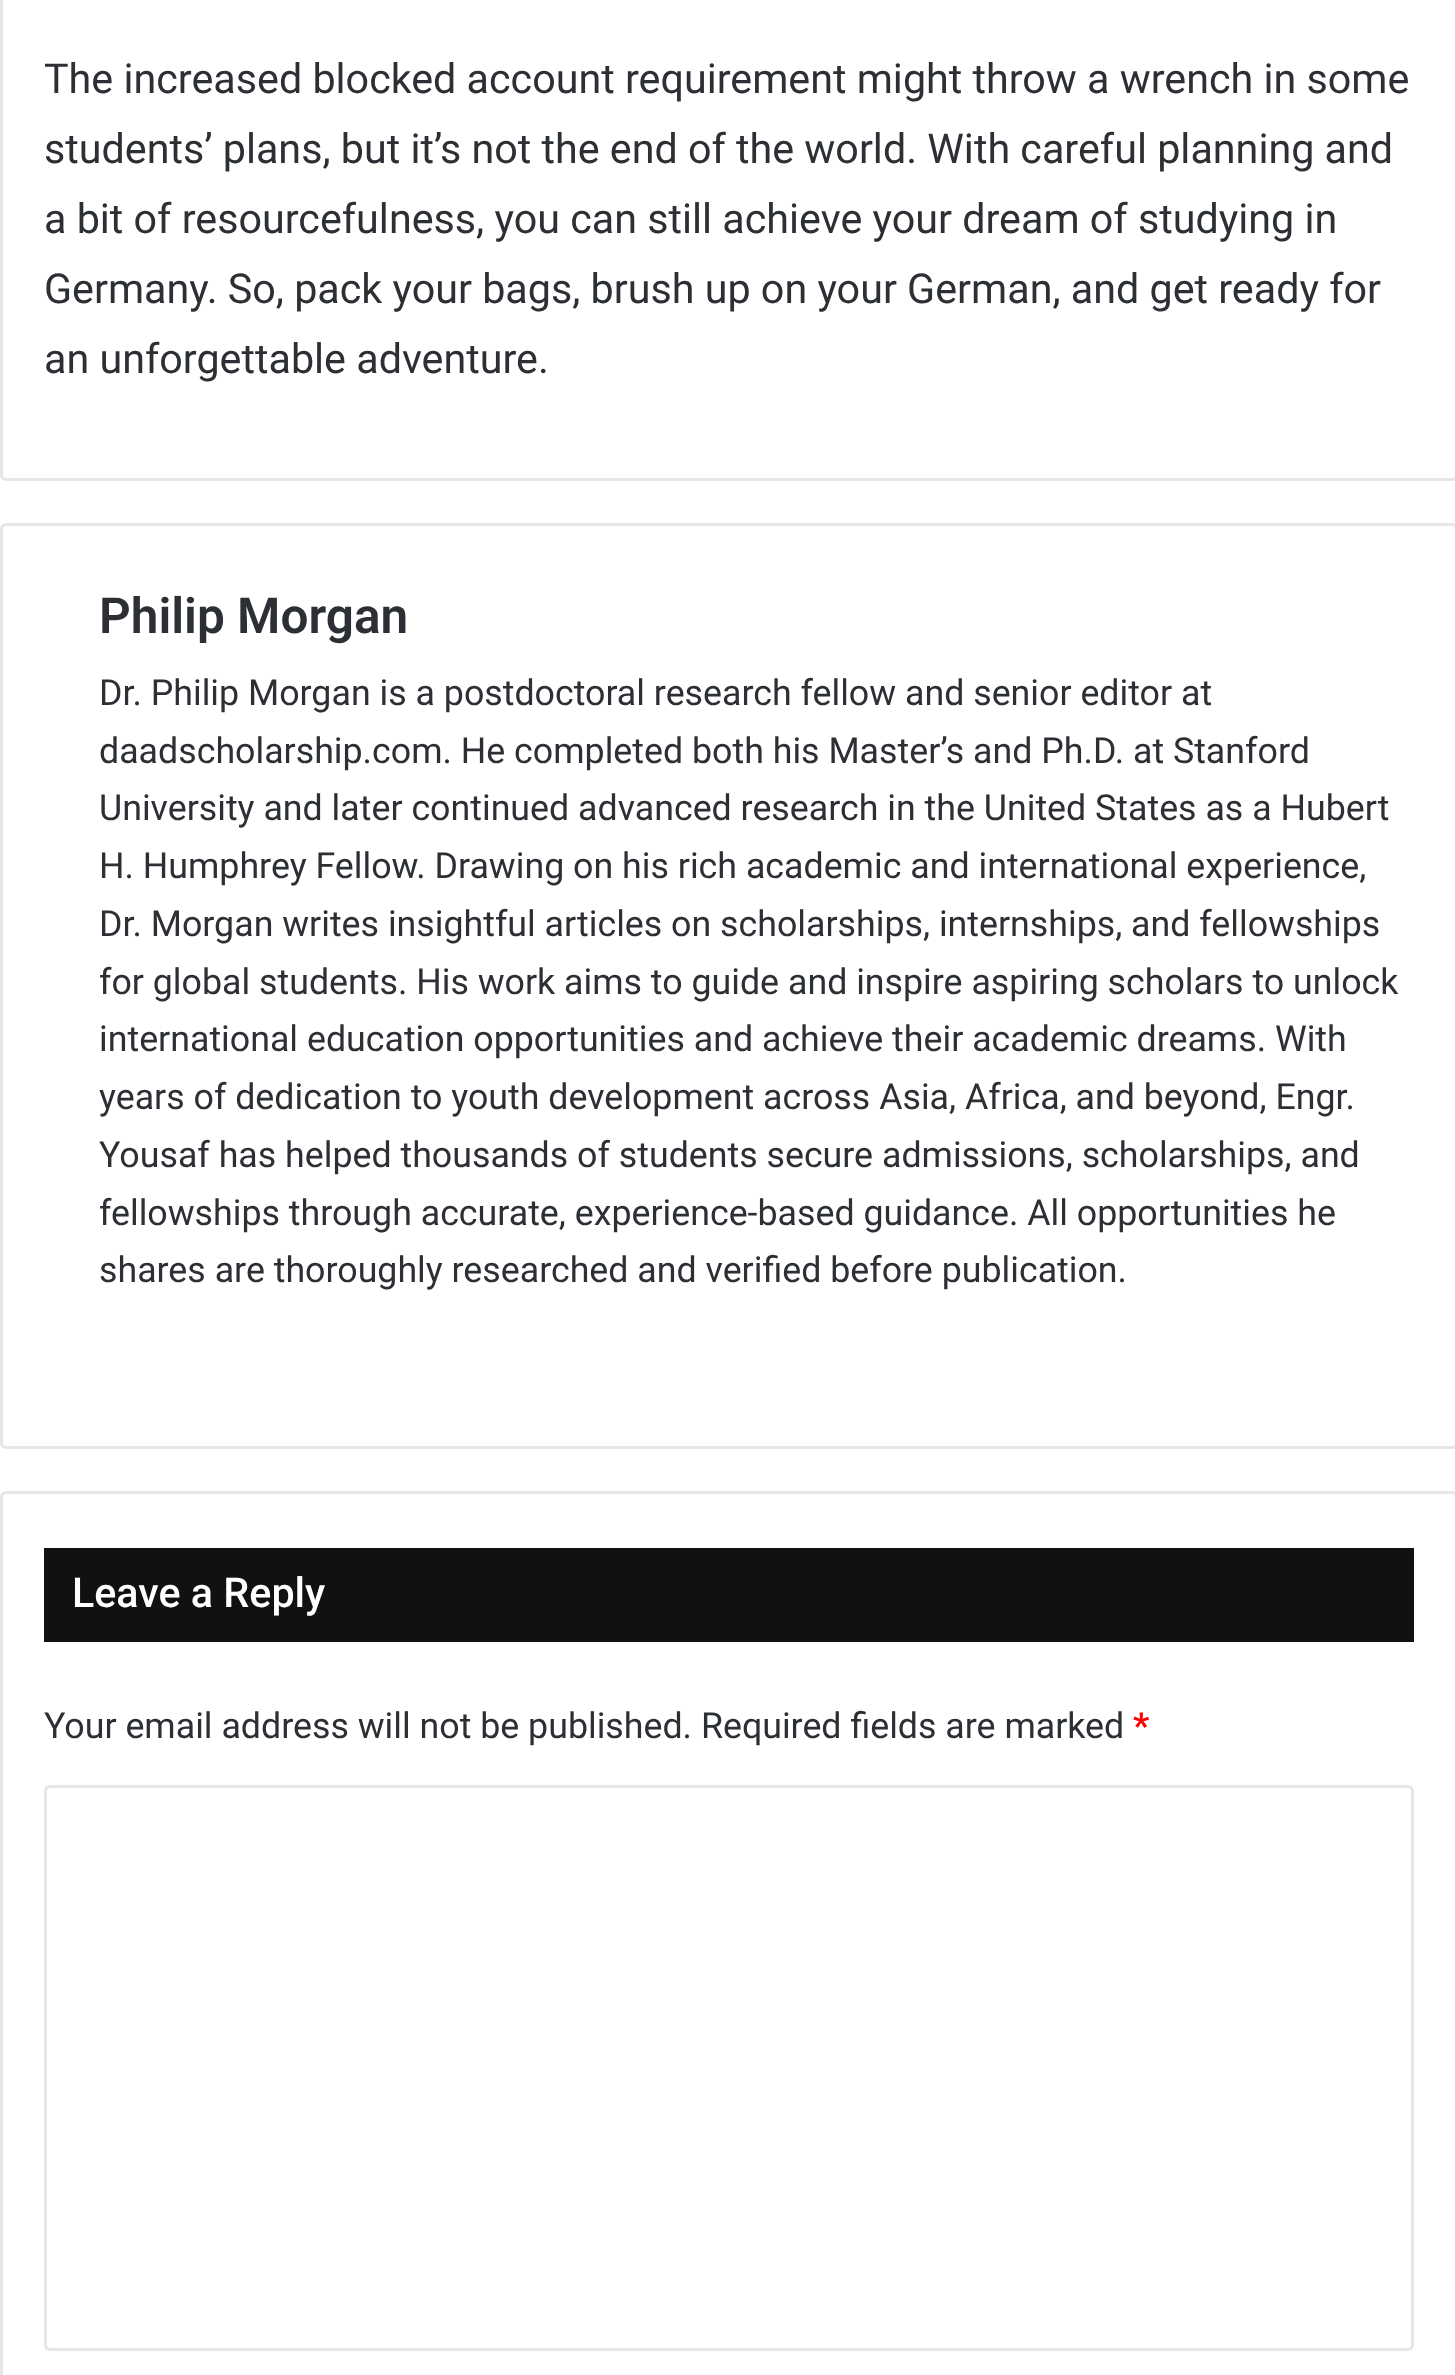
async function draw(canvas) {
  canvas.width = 1455
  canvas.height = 2375
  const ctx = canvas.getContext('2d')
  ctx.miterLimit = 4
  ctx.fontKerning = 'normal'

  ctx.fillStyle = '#fff'
  ctx.fillRect(0, 0, 1455, 2375)
  ctx.beginPath()
  ctx.roundRect(1.5, -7.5, 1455, 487, 4.5)
  ctx.strokeStyle = '#e6e6e6'
  ctx.lineWidth = 3
  ctx.stroke()
  ctx.font = '41.25px Roboto'
  ctx.fillStyle = '#2c2f34'
  ctx.fillText('The increased blocked account requirement might throw a wrench in some', 44, 93)
  ctx.fillText('students’ plans, but it’s not the end of the world. With careful planning and', 44, 163)
  ctx.fillText('a bit of resourcefulness, you can still achieve your dream of studying in', 44, 233)
  ctx.fillText('Germany. So, pack your bags, brush up on your German, and get ready for', 44, 303)
  ctx.fillText('an unforgettable adventure.', 44, 373)
  ctx.beginPath()
  ctx.roundRect(1.5, 524.5, 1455, 923, 4.5)
  ctx.stroke()
  ctx.font = '600 49.5px Roboto'
  ctx.fillText('Philip Morgan', 99, 633)
  ctx.font = '35.75px Roboto'
  ctx.fillText('Dr. Philip Morgan is a postdoctoral research fellow and senior editor at', 99, 705)
  ctx.fillText('daadscholarship.com. He completed both his Master’s and Ph.D. at Stanford', 99, 763)
  ctx.fillText('University and later continued advanced research in the United States as a Hubert', 99, 820)
  ctx.fillText('H. Humphrey Fellow. Drawing on his rich academic and international experience,', 99, 878)
  ctx.fillText('Dr. Morgan writes insightful articles on scholarships, internships, and fellowships', 99, 936)
  ctx.fillText('for global students. His work aims to guide and inspire aspiring scholars to unlock', 99, 994)
  ctx.fillText('international education opportunities and achieve their academic dreams. With', 99, 1051)
  ctx.fillText('years of dedication to youth development across Asia, Africa, and beyond, Engr.', 99, 1109)
  ctx.fillText('Yousaf has helped thousands of students secure admissions, scholarships, and', 99, 1167)
  ctx.fillText('fellowships through accurate, experience-based guidance. All opportunities he', 99, 1225)
  ctx.fillText('shares are thoroughly researched and verified before publication.', 99, 1282)
  ctx.beginPath()
  ctx.roundRect(1.5, 1492.5, 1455, 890, 4.5)
  ctx.stroke()
  ctx.fillStyle = '#111'
  ctx.fillRect(44, 1548, 1370, 94)
  ctx.font = '500 41.25px Roboto'
  ctx.fillStyle = '#fff'
  ctx.fillText('Leave a Reply', 72, 1607)
  ctx.font = '35.75px Roboto'
  ctx.fillStyle = '#2c2f34'
  ctx.fillText('Your email address will not be published. Required fields are marked', 44, 1738)
  ctx.font = 'bold 35.75px Roboto'
  ctx.fillStyle = '#f00'
  ctx.fillText('*', 1133, 1738)
  ctx.beginPath()
  ctx.roundRect(45.5, 1786.5, 1367, 563, 4.5)
  ctx.stroke()
}

draw(document.querySelector('canvas'))
